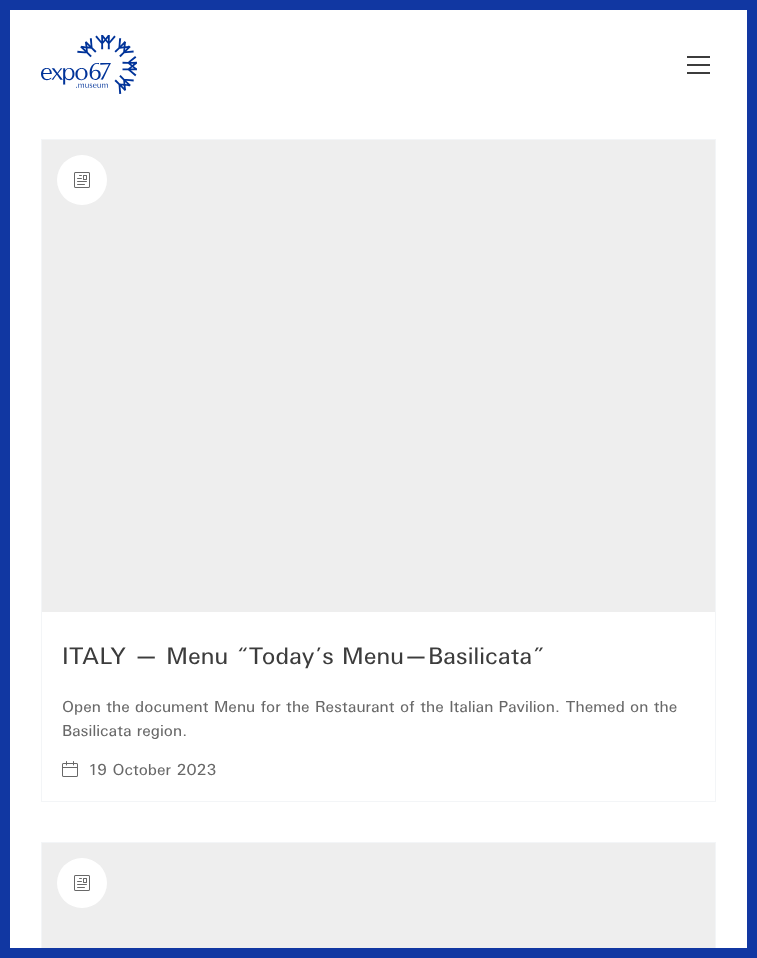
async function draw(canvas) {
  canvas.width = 757
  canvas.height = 958
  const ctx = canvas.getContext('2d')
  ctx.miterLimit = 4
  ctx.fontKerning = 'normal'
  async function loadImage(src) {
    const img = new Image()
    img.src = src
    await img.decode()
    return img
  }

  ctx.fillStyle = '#fff'
  ctx.fillRect(0, 0, 757, 958)
  ctx.drawImage(await loadImage('image0.png'), 41, 35, 96, 59)
  ctx.fillStyle = '#3c3c3c'
  ctx.fillRect(687, 56, 23, 2)
  ctx.fillRect(687, 64, 23, 2)
  ctx.fillRect(687, 72, 23, 2)
  ctx.strokeStyle = '#f3f5f7'
  ctx.strokeRect(41.5, 139.5, 674, 662)
  ctx.fillStyle = '#eee'
  ctx.fillRect(42, 140, 673, 472)
  ctx.fillStyle = '#fff'
  ctx.beginPath()
  ctx.arc(82, 180, 25, 0, 2 * Math.PI)
  ctx.fill()
  ctx.drawImage(await loadImage('image1.png'), 74, 172, 16, 16)
  ctx.drawImage(await loadImage('image2.png'), 62, 761, 16, 16)
  ctx.strokeRect(41.5, 842.5, 674, 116)
  ctx.fillStyle = '#eee'
  ctx.fillRect(42, 843, 673, 105)
  ctx.fillStyle = '#fff'
  ctx.beginPath()
  ctx.arc(82, 883, 25, 0, 2 * Math.PI)
  ctx.fill()
  ctx.drawImage(await loadImage('image1.png'), 74, 875, 16, 16)
  ctx.strokeStyle = '#1137a2'
  ctx.lineWidth = 10
  ctx.strokeRect(5, 5, 747, 948)
  ctx.font = '24px "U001"'
  ctx.fillStyle = '#3c3c3c'
  ctx.fillText('ITALY — Menu “Today’s Menu—Basilicata”', 62, 664)
  ctx.font = '16px "U001"'
  ctx.fillStyle = '#686868'
  ctx.fillText('Open the document Menu for the Restaurant of the Italian Pavilion. Themed on the', 62, 712)
  ctx.fillText('Basilicata region.', 62, 736)
  ctx.fillText('19 October 2023', 88, 775)
}

draw(document.querySelector('canvas'))
